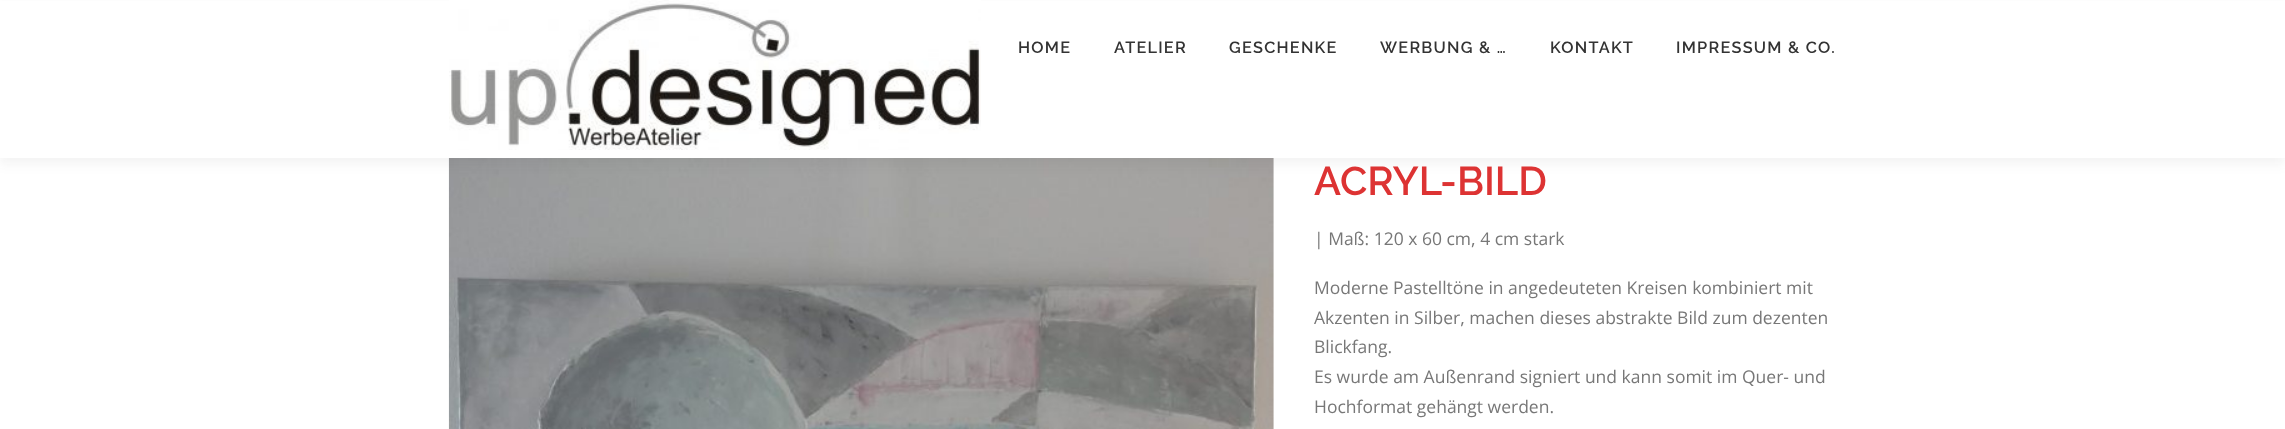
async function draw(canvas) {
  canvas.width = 2285
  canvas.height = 429
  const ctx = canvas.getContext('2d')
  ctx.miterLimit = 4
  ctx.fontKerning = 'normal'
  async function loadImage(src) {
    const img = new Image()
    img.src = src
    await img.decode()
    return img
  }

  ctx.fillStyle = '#fff'
  ctx.fillRect(0, 0, 2285, 429)
  ctx.drawImage(await loadImage('image1.png'), 448, 158, 826, 271)
  ctx.fillStyle = '#3232320f'
  ctx.filter = 'blur(6px)'
  ctx.beginPath()
  ctx.rect(0, 6, 2285, 158)
  ctx.fill()
  ctx.filter = 'none'
  ctx.fillStyle = '#fff'
  ctx.fillRect(0, 1, 2285, 157)
  ctx.drawImage(await loadImage('image0.png'), 449, 0, 532, 150)
  ctx.letterSpacing = '1.25px'
  ctx.font = '600 16.25px Raleway'
  ctx.fillStyle = '#333'
  ctx.fillText('HOME', 1018, 53)
  ctx.fillText('ATELIER', 1114, 53)
  ctx.fillText('GESCHENKE', 1229, 53)
  ctx.fillText('WERBUNG & …', 1380, 53)
  ctx.fillText('KONTAKT', 1550, 53)
  ctx.fillText('IMPRESSUM & CO.', 1676, 53)
  ctx.letterSpacing = '0px'
  ctx.font = '600 40px Raleway'
  ctx.fillStyle = '#d33'
  ctx.fillText('ACRYL-BILD', 1314, 195)
  ctx.font = '17.5px Open Sans'
  ctx.fillStyle = '#777'
  ctx.fillText('| Maß: 120 x 60 cm, 4 cm stark', 1314, 245)
  ctx.fillText('Moderne Pastelltöne in angedeuteten Kreisen kombiniert mit', 1314, 294)
  ctx.fillText('Akzenten in Silber, machen dieses abstrakte Bild zum dezenten', 1314, 324)
  ctx.fillText('Blickfang.', 1314, 353)
  ctx.fillText('Es wurde am Außenrand signiert und kann somit im Quer- und', 1314, 383)
  ctx.fillText('Hochformat gehängt werden.', 1314, 413)
}

draw(document.querySelector('canvas'))
